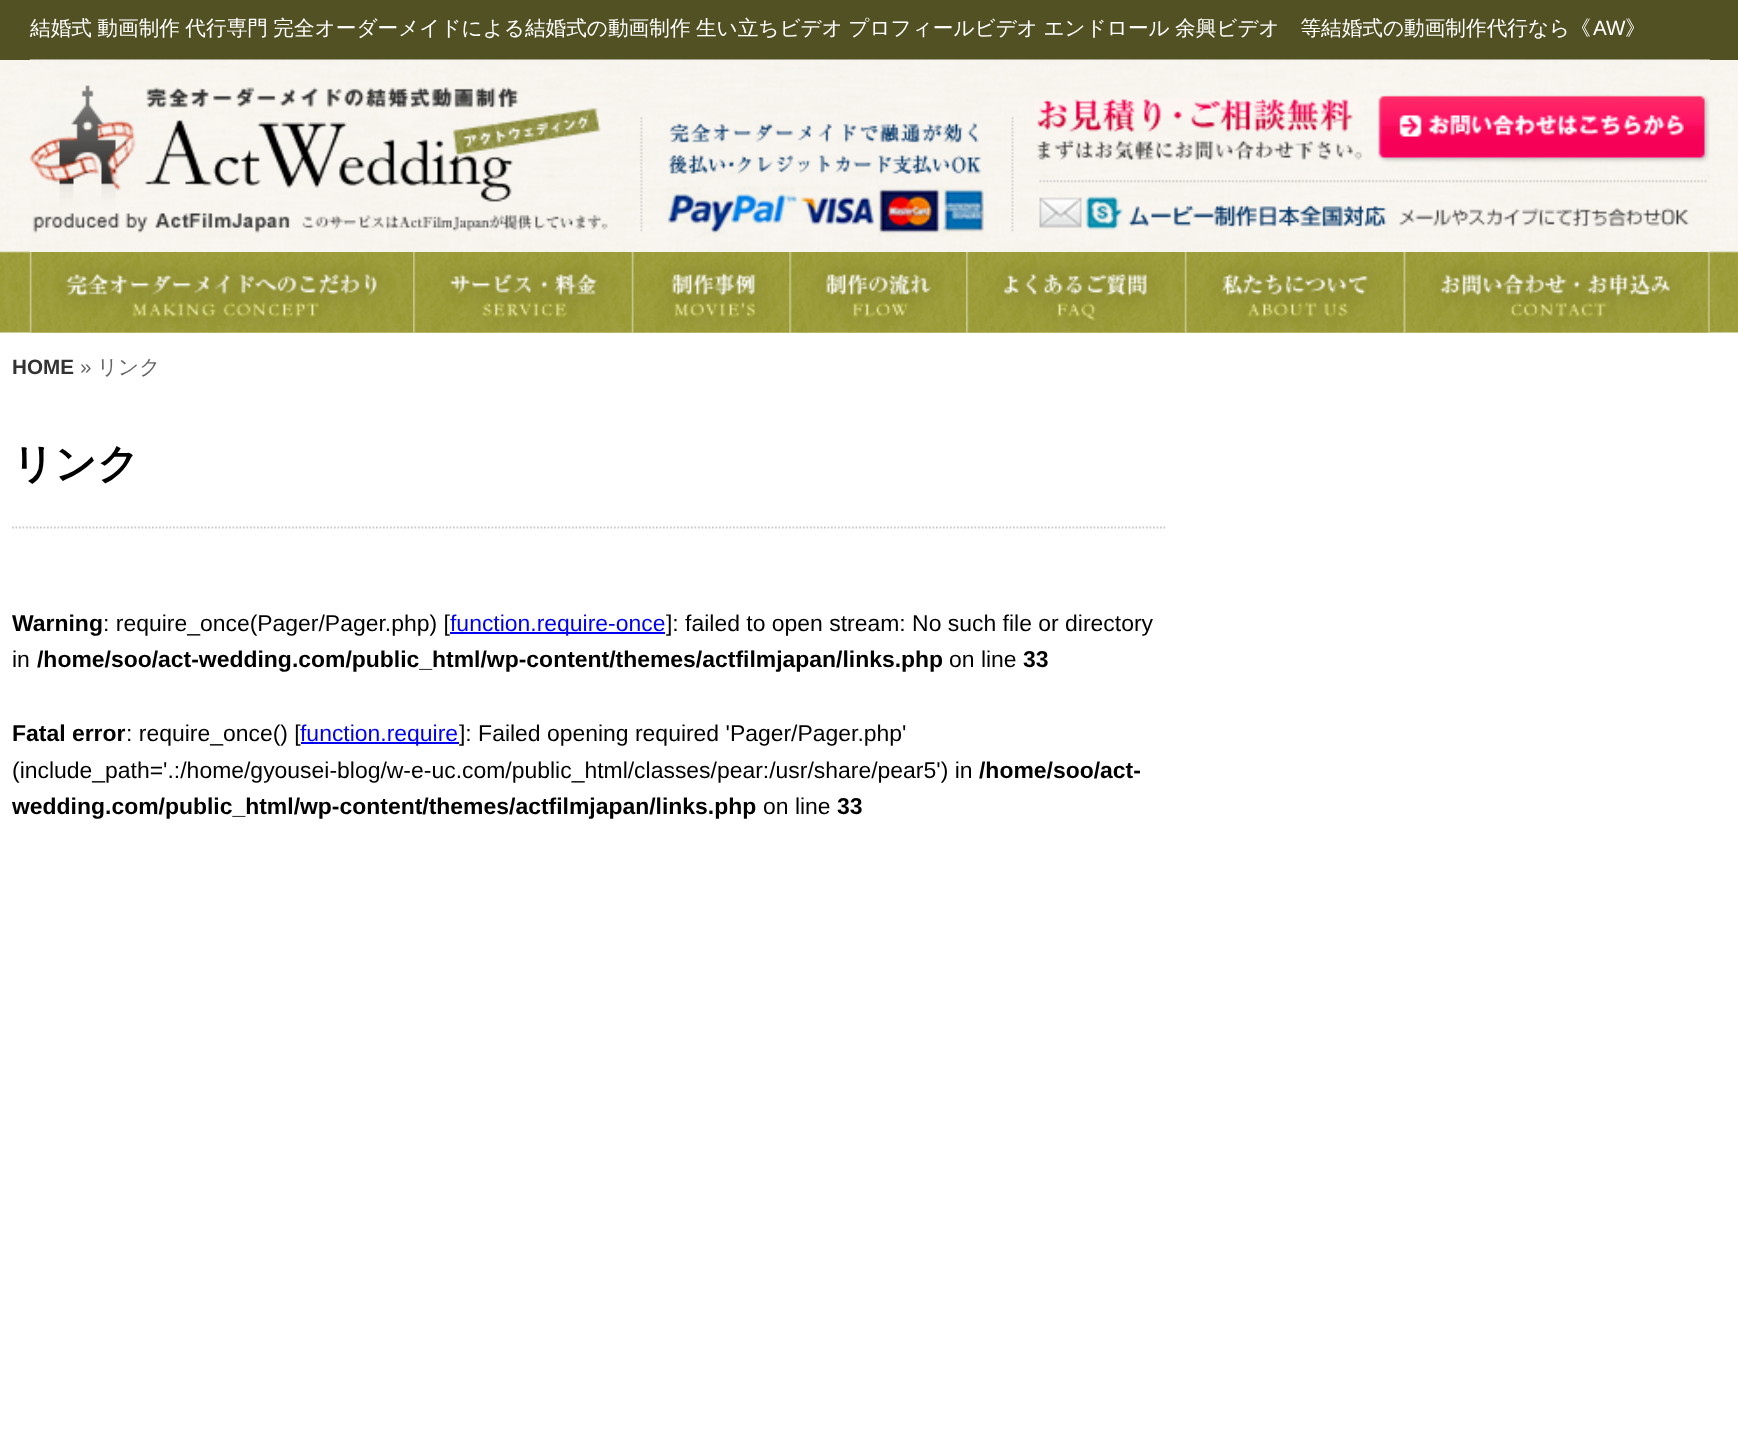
async function draw(canvas) {
  canvas.width = 1738
  canvas.height = 1439
  const ctx = canvas.getContext('2d')
  ctx.miterLimit = 4
  ctx.fontKerning = 'normal'
  async function loadImage(src) {
    const img = new Image()
    img.src = src
    await img.decode()
    return img
  }

  ctx.fillStyle = '#fff'
  ctx.fillRect(0, 0, 1738, 1439)
  ctx.fillStyle = '#525124'
  ctx.fillRect(0, 0, 1738, 60)
  ctx.wordSpacing = '-0.75px'
  ctx.font = '500 20.65px WenQuanYi Zen Hei'
  ctx.fillStyle = '#fff'
  ctx.fillText('結婚式 動画制作 代行専門 完全オーダーメイドによる結婚式の動画制作 生い立ちビデオ プロフィールビデオ エンドロール 余興ビデオ　等結婚式の動画制作代行なら《', 30, 35)
  ctx.wordSpacing = '0px'
  ctx.font = '20.65px Liberation Sans'
  ctx.fillText('AW', 1593, 35)
  ctx.font = '500 20.65px WenQuanYi Zen Hei'
  ctx.fillText('》', 1625, 35)
  ctx.drawImage(await loadImage('image0.png'), 0, 60, 1738, 273)
  ctx.drawImage(await loadImage('image1.png'), 29, 59, 1681, 193)
  ctx.drawImage(await loadImage('image2.png'), 29, 252, 384, 81)
  ctx.drawImage(await loadImage('image3.png'), 413, 252, 219, 81)
  ctx.drawImage(await loadImage('image4.png'), 631, 252, 159, 81)
  ctx.drawImage(await loadImage('image5.png'), 789, 252, 177, 81)
  ctx.drawImage(await loadImage('image6.png'), 966, 252, 219, 81)
  ctx.drawImage(await loadImage('image7.png'), 1184, 252, 220, 81)
  ctx.drawImage(await loadImage('image8.png'), 1403, 252, 307, 81)
  ctx.font = 'bold 20.65px Liberation Sans'
  ctx.fillStyle = '#333'
  ctx.fillText('HOME', 12, 374)
  ctx.font = '20.65px Liberation Sans'
  ctx.fillStyle = '#666'
  ctx.fillText('»', 80, 374)
  ctx.font = '500 20.65px WenQuanYi Zen Hei'
  ctx.fillText('リンク', 97, 374)
  ctx.beginPath()
  ctx.moveTo(12, 527.5)
  ctx.lineTo(1167, 527.5)
  ctx.strokeStyle = '#ccc'
  ctx.lineWidth = 1.8
  ctx.setLineDash([1.75, 1.75])
  ctx.stroke()
  ctx.font = 'bold 41.5px WenQuanYi Zen Hei'
  ctx.fillStyle = '#000'
  ctx.fillText('リンク', 12, 478)
  ctx.font = 'bold 22.95px Liberation Sans'
  ctx.fillText('Warning', 12, 631)
  ctx.font = '22.95px Liberation Sans'
  ctx.fillText(': require_once(Pager/Pager.php) [', 103, 631)
  ctx.fillStyle = '#00e'
  ctx.fillRect(450, 632, 215, 2)
  ctx.fillText('function.require-once', 450, 631)
  ctx.fillStyle = '#000'
  ctx.fillText(']: failed to open stream: No such file or directory', 666, 631)
  ctx.fillText('in', 12, 667)
  ctx.font = 'bold 22.95px Liberation Sans'
  ctx.fillText('/home/soo/act-wedding.com/public_html/wp-content/themes/actfilmjapan/links.php', 37, 667)
  ctx.font = '22.95px Liberation Sans'
  ctx.fillText('on line', 949, 667)
  ctx.font = 'bold 22.95px Liberation Sans'
  ctx.fillText('33', 1023, 667)
  ctx.fillText('Fatal error', 12, 741)
  ctx.font = '22.95px Liberation Sans'
  ctx.fillText(': require_once() [', 126, 741)
  ctx.fillStyle = '#00e'
  ctx.fillRect(301, 742, 158, 2)
  ctx.fillText('function.require', 300, 741)
  ctx.fillStyle = '#000'
  ctx.fillText(']: Failed opening required \'Pager/Pager.php\'', 459, 741)
  ctx.fillText('(include_path=\'.:/home/gyousei-blog/w-e-uc.com/public_html/classes/pear:/usr/share/pear5\') in', 12, 778)
  ctx.font = 'bold 22.95px Liberation Sans'
  ctx.fillText('/home/soo/act-', 979, 778)
  ctx.fillText('wedding.com/public_html/wp-content/themes/actfilmjapan/links.php', 12, 814)
  ctx.font = '22.95px Liberation Sans'
  ctx.fillText('on line', 763, 814)
  ctx.font = 'bold 22.95px Liberation Sans'
  ctx.fillText('33', 837, 814)
}

draw(document.querySelector('canvas'))
